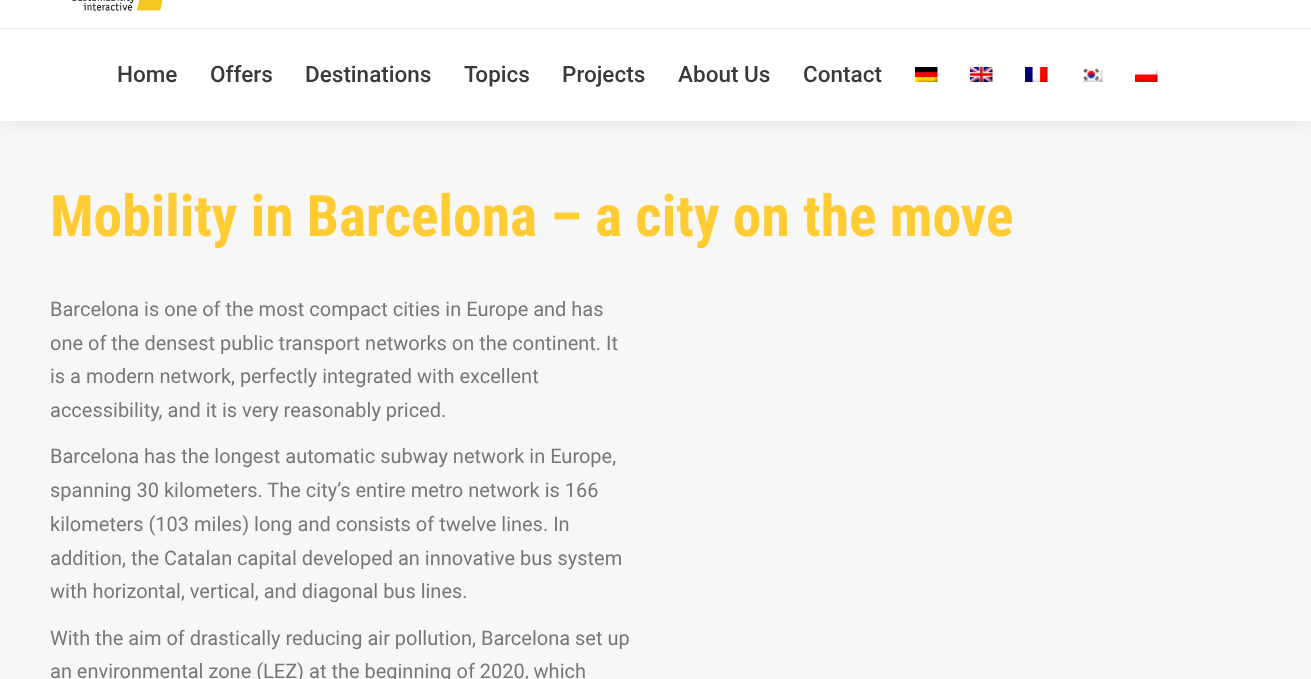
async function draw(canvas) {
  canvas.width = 1311
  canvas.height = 679
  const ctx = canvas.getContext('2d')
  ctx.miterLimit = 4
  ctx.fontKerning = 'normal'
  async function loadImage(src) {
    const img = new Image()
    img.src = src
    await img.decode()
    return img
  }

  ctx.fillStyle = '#f7f7f7'
  ctx.fillRect(0, 0, 1311, 679)
  ctx.fillStyle = '#00000012'
  ctx.filter = 'blur(9.5px)'
  ctx.beginPath()
  ctx.rect(-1, -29, 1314, 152)
  ctx.fill()
  ctx.filter = 'none'
  ctx.fillStyle = '#fff'
  ctx.fillRect(0, 0, 1311, 121)
  ctx.drawImage(await loadImage('image0.png'), 72, 0, 91, 11)
  ctx.fillStyle = '#ececec'
  ctx.fillRect(0, 28, 1311, 1)
  ctx.font = '500 22.5px Roboto'
  ctx.fillStyle = '#3a3a3a'
  ctx.fillText('Home', 117, 82)
  ctx.fillText('Offers', 210, 82)
  ctx.fillText('Destinations', 305, 82)
  ctx.fillText('Topics', 464, 82)
  ctx.fillText('Projects', 562, 82)
  ctx.fillText('About Us', 678, 82)
  ctx.fillText('Contact', 803, 82)
  ctx.drawImage(await loadImage('image1.png'), 915, 67, 23, 15)
  ctx.drawImage(await loadImage('image2.png'), 970, 67, 23, 15)
  ctx.drawImage(await loadImage('image3.png'), 1025, 67, 23, 15)
  ctx.drawImage(await loadImage('image4.png'), 1082, 68, 21, 14)
  ctx.drawImage(await loadImage('image5.png'), 1135, 69, 23, 13)
  ctx.font = 'bold 57.5px Roboto Condensed'
  ctx.fillStyle = '#fc3'
  ctx.fillText('Mobility in Barcelona – a city on the move', 50, 236)
  ctx.font = '20px Roboto'
  ctx.fillStyle = '#777'
  ctx.fillText('Barcelona is one of the most compact cities in Europe and has', 50, 316)
  ctx.fillText('one of the densest public transport networks on the continent. It', 50, 350)
  ctx.fillText('is a modern network, perfectly integrated with excellent', 50, 383)
  ctx.fillText('accessibility, and it is very reasonably priced.', 50, 417)
  ctx.fillText('Barcelona has the longest automatic subway network in Europe,', 50, 463)
  ctx.fillText('spanning 30 kilometers. The city’s entire metro network is 166', 50, 497)
  ctx.fillText('kilometers (103 miles) long and consists of twelve lines. In', 50, 531)
  ctx.fillText('addition, the Catalan capital developed an innovative bus system', 50, 565)
  ctx.fillText('with horizontal, vertical, and diagonal bus lines.', 50, 598)
  ctx.fillText('With the aim of drastically reducing air pollution, Barcelona set up', 50, 645)
  ctx.fillText('an environmental zone (LEZ) at the beginning of 2020, which', 50, 678)
}

draw(document.querySelector('canvas'))
